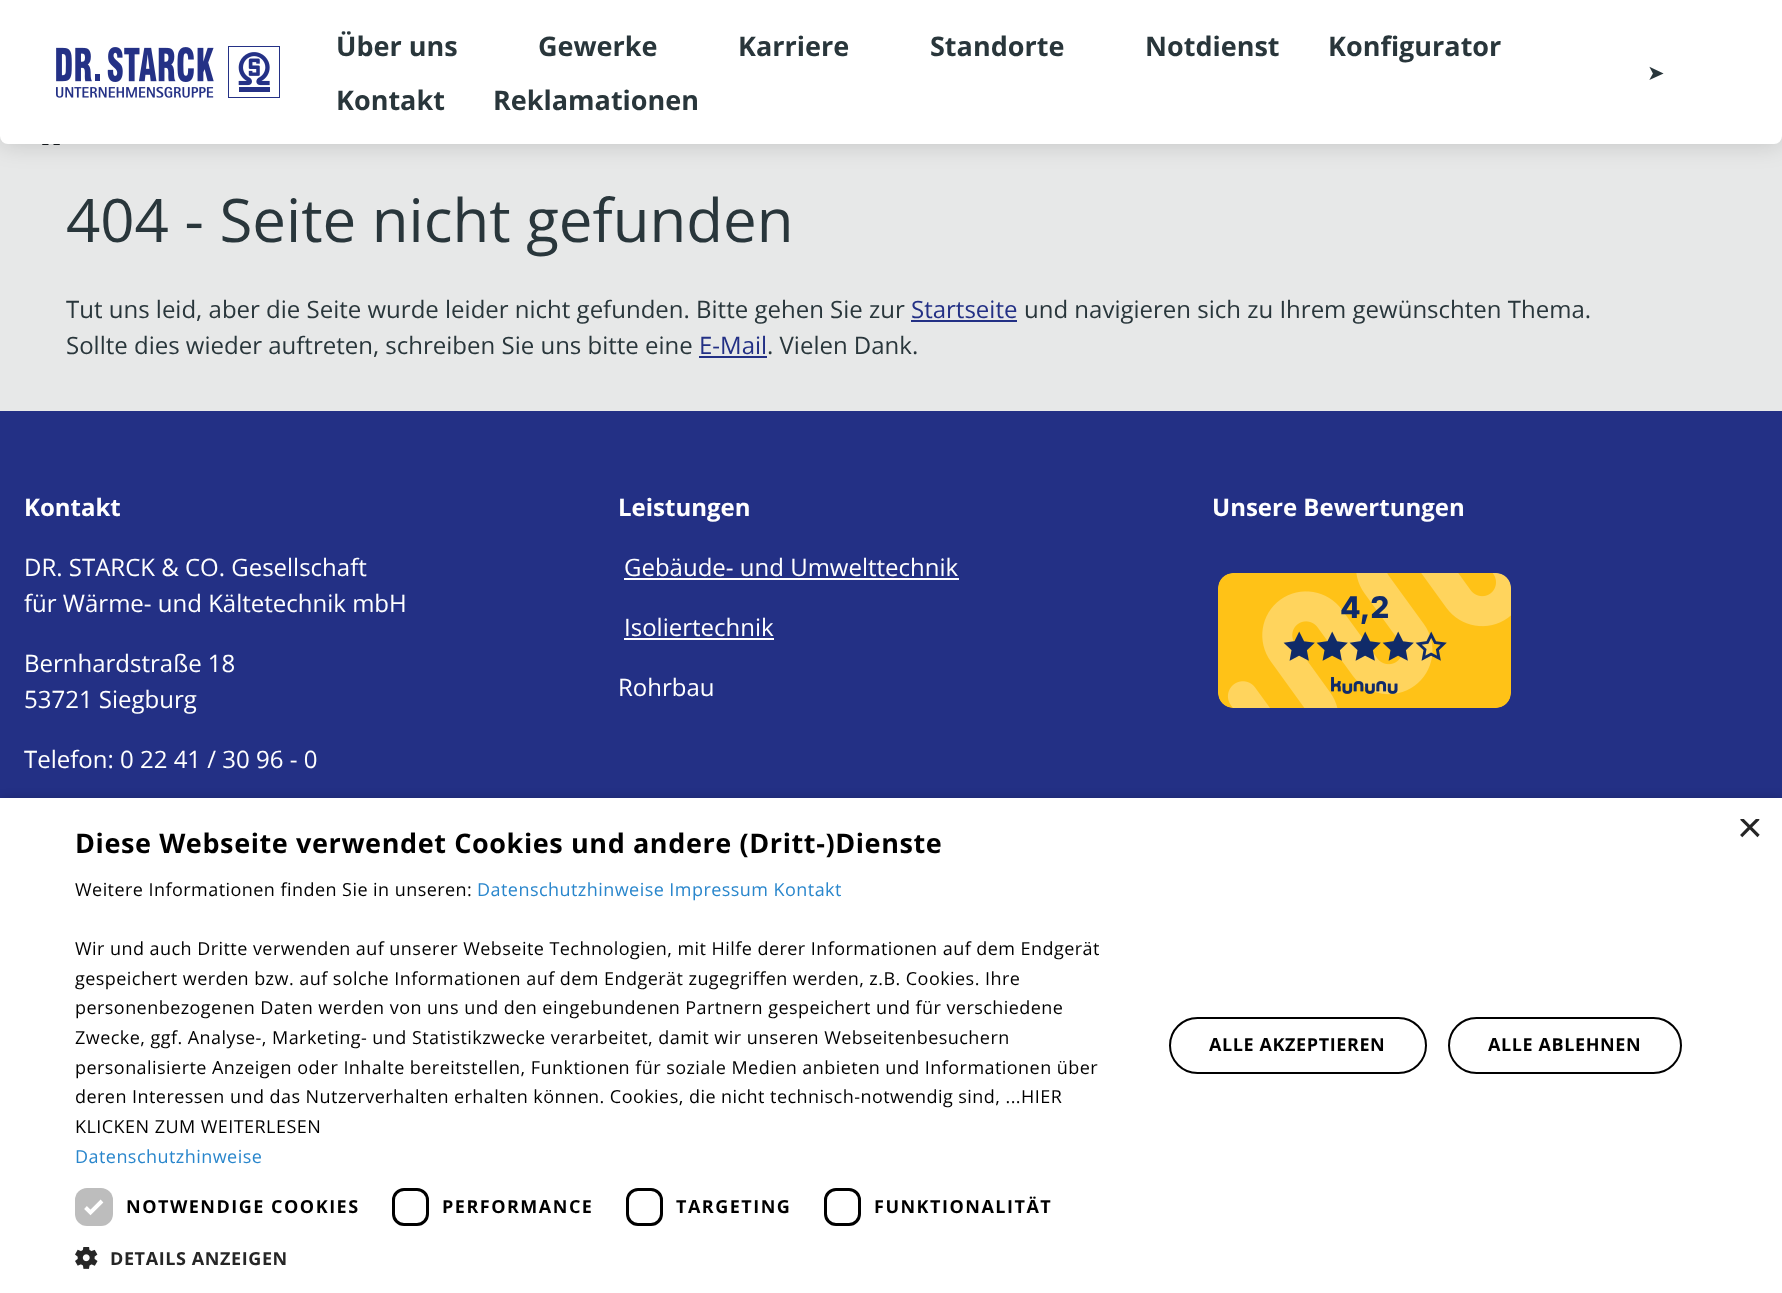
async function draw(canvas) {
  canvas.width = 1782
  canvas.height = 1293
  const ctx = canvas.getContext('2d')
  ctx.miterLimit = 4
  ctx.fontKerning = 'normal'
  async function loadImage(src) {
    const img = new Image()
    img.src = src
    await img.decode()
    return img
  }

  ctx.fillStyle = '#e7e8e8'
  ctx.fillRect(0, 0, 1782, 1293)
  ctx.drawImage(await loadImage('image1.png'), 42, 144, 18, 1)
  ctx.fillStyle = '#00000029'
  ctx.filter = 'blur(12px)'
  ctx.beginPath()
  ctx.roundRect(0, 0, 1782, 144, 8)
  ctx.fill()
  ctx.filter = 'none'
  ctx.fillStyle = '#fff'
  ctx.beginPath()
  ctx.roundRect(0, 0, 1782, 144, [0, 0, 8, 8])
  ctx.fill()
  ctx.drawImage(await loadImage('image0.png'), 56, 46, 224, 52)
  ctx.font = 'bold 27px Open Sans'
  ctx.fillStyle = '#29363b'
  ctx.fillText('Über uns', 336, 56)
  ctx.fillText('Gewerke', 538, 56)
  ctx.fillText('Karriere', 738, 56)
  ctx.fillText('Standorte', 930, 56)
  ctx.fillText('Notdienst', 1145, 56)
  ctx.fillText('Konfigurator', 1328, 56)
  ctx.fillText('Kontakt', 336, 110)
  ctx.fillText('Reklamationen', 493, 110)
  ctx.font = '21px DejaVu Sans'
  ctx.fillText('➤', 1647, 80)
  ctx.font = '60px Open Sans'
  ctx.fillText('404 - Seite nicht gefunden', 66, 242)
  ctx.font = '24px Open Sans'
  ctx.fillText('Tut uns leid, aber die Seite wurde leider nicht gefunden. Bitte gehen Sie zur', 66, 318)
  ctx.fillStyle = '#233085'
  ctx.fillText('Startseite', 911, 318)
  ctx.fillRect(911, 320, 106, 2)
  ctx.fillStyle = '#29363b'
  ctx.fillText('und navigieren sich zu Ihrem gewünschten Thema.', 1024, 318)
  ctx.fillText('Sollte dies wieder auftreten, schreiben Sie uns bitte eine', 66, 354)
  ctx.fillStyle = '#233085'
  ctx.fillText('E-Mail', 699, 354)
  ctx.fillRect(699, 356, 68, 2)
  ctx.fillStyle = '#29363b'
  ctx.fillText('. Vielen Dank.', 767, 354)
  ctx.fillStyle = '#233085'
  ctx.fillRect(0, 411, 1782, 387)
  ctx.font = 'bold 24px Open Sans'
  ctx.fillStyle = '#fff'
  ctx.fillText('Kontakt', 24, 516)
  ctx.font = '24px Open Sans'
  ctx.fillText('DR. STARCK & CO. Gesellschaft', 24, 576)
  ctx.fillText('für Wärme- und Kältetechnik mbH', 24, 612)
  ctx.fillText('Bernhardstraße 18', 24, 672)
  ctx.fillText('53721 Siegburg', 24, 708)
  ctx.fillText('Telefon: 0 22 41 / 30 96 - 0', 24, 768)
  ctx.font = 'bold 24px Open Sans'
  ctx.fillText('Leistungen', 618, 516)
  ctx.font = '24px Open Sans'
  ctx.fillText('Gebäude- und Umwelttechnik', 624, 576)
  ctx.fillRect(624, 578, 335, 2)
  ctx.fillText('Isoliertechnik', 624, 636)
  ctx.fillRect(624, 638, 150, 2)
  ctx.fillText('Rohrbau', 618, 696)
  ctx.font = 'bold 24px Open Sans'
  ctx.fillText('Unsere Bewertungen', 1212, 516)
  ctx.drawImage(await loadImage('image2.png'), 1218, 573, 293, 135)
  ctx.font = '800 30px Inter'
  ctx.fillStyle = '#102b69'
  ctx.fillText('4,2', 1340, 618)
  ctx.fillStyle = '#00000059'
  ctx.filter = 'blur(6px)'
  ctx.beginPath()
  ctx.rect(2, 801, 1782, 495)
  ctx.fill()
  ctx.filter = 'none'
  ctx.fillStyle = '#fff'
  ctx.fillRect(0, 798, 1782, 495)
  ctx.save()
  ctx.beginPath()
  ctx.rect(1737, 819, 23, 23)
  ctx.clip()
  ctx.font = '44px Liberation Sans'
  ctx.fillStyle = '#262626'
  ctx.fillText('×', 1737, 842)
  ctx.restore()
  ctx.letterSpacing = '0.6px'
  ctx.font = 'bold 27px Open Sans'
  ctx.fillStyle = '#000'
  ctx.fillText('Diese Webseite verwendet Cookies und andere (Dritt-)Dienste', 75, 853)
  ctx.letterSpacing = '0.45px'
  ctx.font = '18px Open Sans'
  ctx.fillText('Weitere Informationen finden Sie in unseren:', 75, 896)
  ctx.fillStyle = '#2986cc'
  ctx.fillText('Datenschutzhinweise Impressum Kontakt', 477, 896)
  ctx.fillStyle = '#000'
  ctx.fillText('Wir und auch Dritte verwenden auf unserer Webseite Technologien, mit Hilfe derer Informationen auf dem Endgerät', 75, 955)
  ctx.fillText('gespeichert werden bzw. auf solche Informationen auf dem Endgerät zugegriffen werden, z.B. Cookies. Ihre', 75, 985)
  ctx.fillText('personenbezogenen Daten werden von uns und den eingebundenen Partnern gespeichert und für verschiedene', 75, 1014)
  ctx.fillText('Zwecke, ggf. Analyse-, Marketing- und Statistikzwecke verarbeitet, damit wir unseren Webseitenbesuchern', 75, 1044)
  ctx.fillText('personalisierte Anzeigen oder Inhalte bereitstellen, Funktionen für soziale Medien anbieten und Informationen über', 75, 1074)
  ctx.fillText('deren Interessen und das Nutzerverhalten erhalten können. Cookies, die nicht technisch-notwendig sind, ...HIER', 75, 1103)
  ctx.fillText('KLICKEN ZUM WEITERLESEN', 75, 1133)
  ctx.fillStyle = '#2986cc'
  ctx.fillText('Datenschutzhinweise', 75, 1163)
  ctx.fillStyle = '#bdbdbd'
  ctx.beginPath()
  ctx.roundRect(75, 1188, 38, 38, 12)
  ctx.fill()
  ctx.beginPath()
  ctx.moveTo(85.5, 1207.5)
  ctx.lineTo(90.5, 1212.5)
  ctx.lineTo(102, 1201)
  ctx.strokeStyle = '#fff'
  ctx.lineWidth = 3.9
  ctx.stroke()
  ctx.letterSpacing = '1.5px'
  ctx.font = 'bold 18px Open Sans'
  ctx.fillStyle = '#000'
  ctx.fillText('NOTWENDIGE COOKIES', 126, 1213)
  ctx.beginPath()
  ctx.roundRect(393.5, 1189.5, 34, 35, 10.5)
  ctx.strokeStyle = '#000'
  ctx.lineWidth = 3
  ctx.stroke()
  ctx.fillText('PERFORMANCE', 442, 1213)
  ctx.beginPath()
  ctx.roundRect(627.5, 1189.5, 34, 35, 10.5)
  ctx.stroke()
  ctx.fillText('TARGETING', 676, 1213)
  ctx.beginPath()
  ctx.roundRect(825.5, 1189.5, 34, 35, 10.5)
  ctx.stroke()
  ctx.fillText('FUNKTIONALITÄT', 874, 1213)
  ctx.drawImage(await loadImage('image3.png'), 75, 1247, 23, 22)
  ctx.letterSpacing = '0.6px'
  ctx.fillStyle = '#262626'
  ctx.fillText('DETAILS ANZEIGEN', 110, 1265)
  ctx.beginPath()
  ctx.roundRect(1170, 1018, 256, 55, 27.5)
  ctx.lineWidth = 2
  ctx.stroke()
  ctx.fillStyle = '#000'
  ctx.fillText('ALLE AKZEPTIEREN', 1209, 1051)
  ctx.beginPath()
  ctx.roundRect(1449, 1018, 232, 55, 27.5)
  ctx.stroke()
  ctx.fillText('ALLE ABLEHNEN', 1488, 1051)
}

draw(document.querySelector('canvas'))
